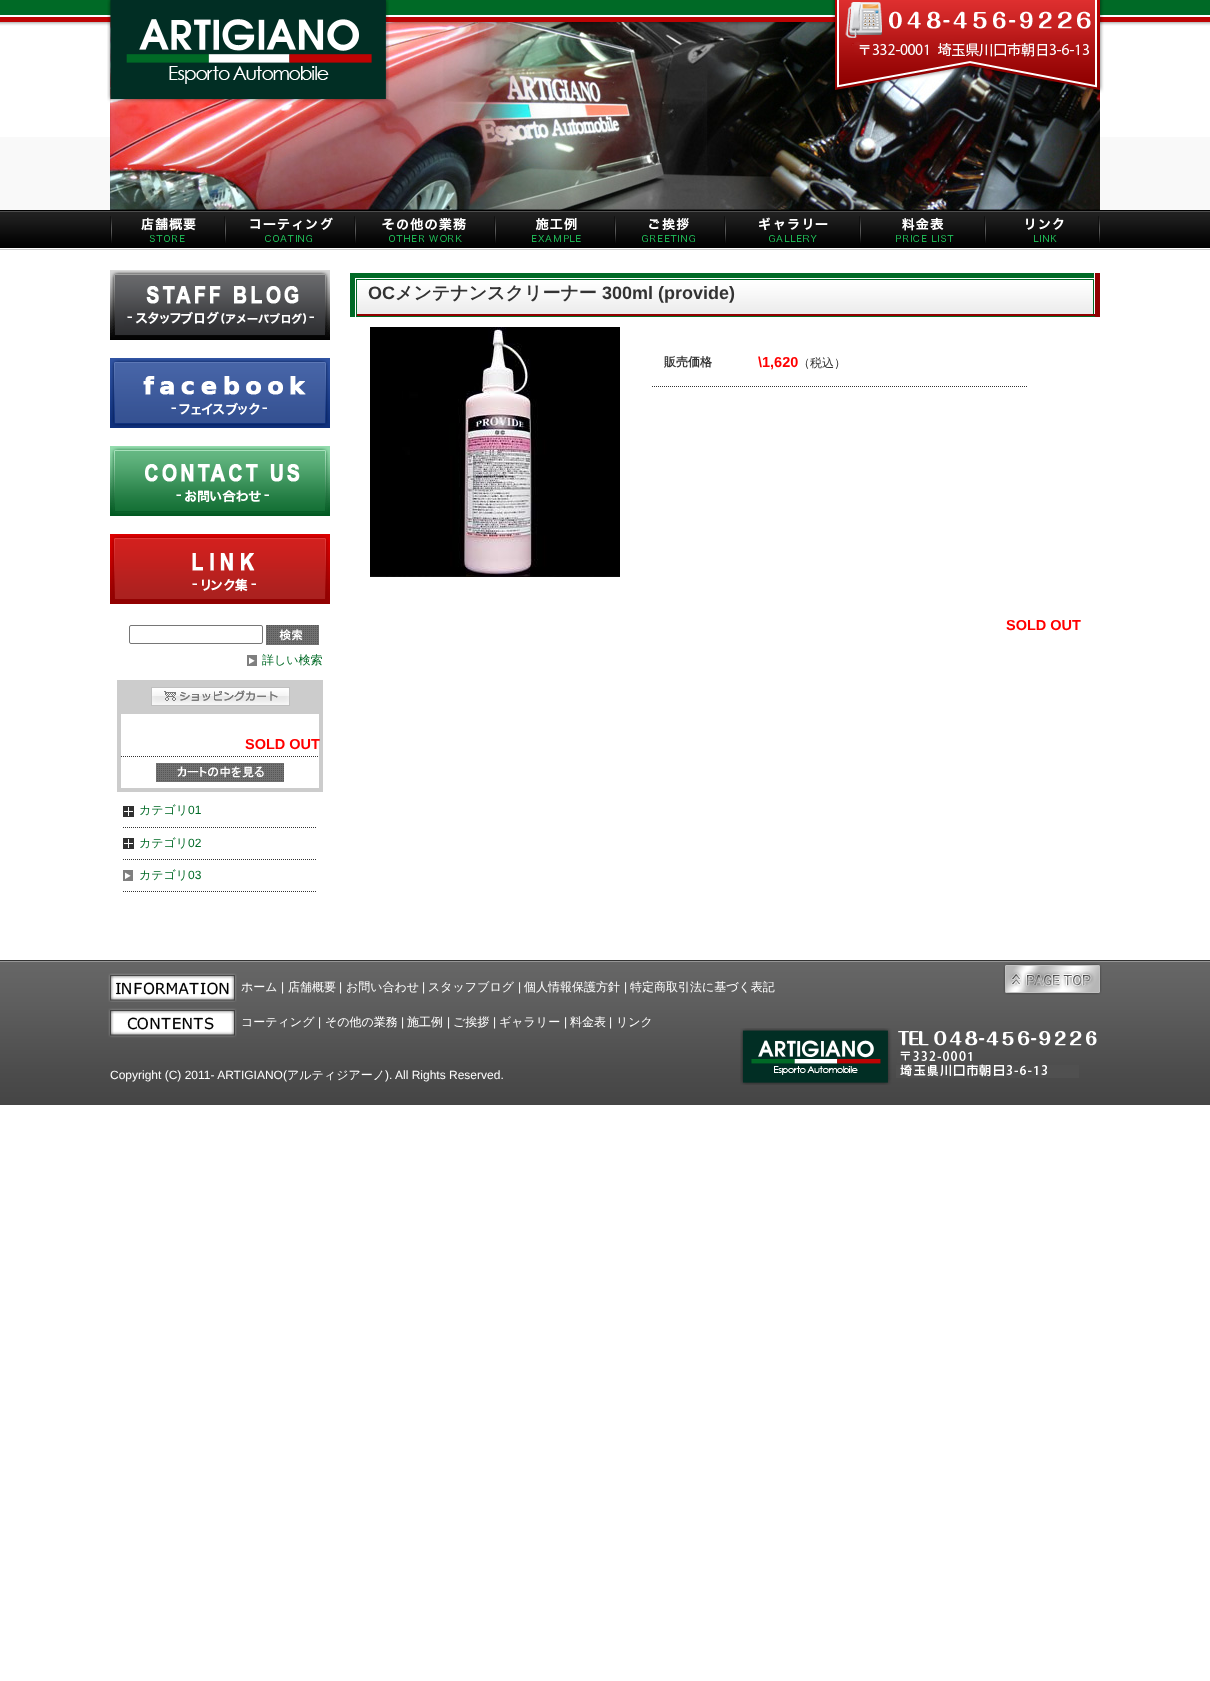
async function draw(canvas) {
  canvas.width = 1210
  canvas.height = 1681
  const ctx = canvas.getContext('2d')
  ctx.miterLimit = 4
  ctx.fontKerning = 'normal'
  async function loadImage(src) {
    const img = new Image()
    img.src = src
    await img.decode()
    return img
  }

  ctx.fillStyle = '#fff'
  ctx.fillRect(0, 0, 1210, 1681)
  ctx.drawImage(await loadImage('image0.png'), 0, 0, 1210, 22)
  ctx.fillStyle = '#f9f9f9'
  ctx.fillRect(0, 137, 1210, 73)
  ctx.drawImage(await loadImage('image4.png'), 110, 22, 990, 188)
  ctx.drawImage(await loadImage('image3.png'), 0, 22, 1210, 4)
  ctx.drawImage(await loadImage('image1.png'), 107, 0, 282, 103)
  ctx.drawImage(await loadImage('image2.png'), 831, 0, 273, 93)
  ctx.drawImage(await loadImage('image5.png'), 0, 210, 1210, 40)
  ctx.drawImage(await loadImage('image6.png'), 110, 216, 115, 27)
  ctx.drawImage(await loadImage('image7.png'), 225, 216, 130, 27)
  ctx.drawImage(await loadImage('image8.png'), 355, 216, 140, 27)
  ctx.drawImage(await loadImage('image9.png'), 495, 216, 120, 27)
  ctx.drawImage(await loadImage('image10.png'), 615, 216, 110, 27)
  ctx.drawImage(await loadImage('image11.png'), 725, 216, 135, 27)
  ctx.drawImage(await loadImage('image12.png'), 860, 216, 125, 27)
  ctx.drawImage(await loadImage('image13.png'), 985, 216, 115, 27)
  ctx.drawImage(await loadImage('image14.png'), 350, 273, 750, 44)
  ctx.font = 'bold 18px Liberation Sans'
  ctx.fillStyle = '#333'
  ctx.fillText('OC', 368, 299)
  ctx.font = 'bold 18px WenQuanYi Zen Hei'
  ctx.fillText('メンテナンスクリーナー', 395, 299)
  ctx.font = 'bold 18px Liberation Sans'
  ctx.fillText('300ml (provide)', 602, 299)
  ctx.drawImage(await loadImage('image15.png'), 370, 327, 250, 250)
  ctx.beginPath()
  ctx.moveTo(652, 386.5)
  ctx.lineTo(746, 386.5)
  ctx.strokeStyle = '#333'
  ctx.setLineDash([1, 1])
  ctx.stroke()
  ctx.font = 'bold 12px WenQuanYi Zen Hei'
  ctx.fillText('販売価格', 664, 366)
  ctx.beginPath()
  ctx.moveTo(746, 386.5)
  ctx.lineTo(1027, 386.5)
  ctx.stroke()
  ctx.font = 'bold 14.5px Liberation Sans'
  ctx.fillStyle = '#f00'
  ctx.fillText('\\1,620', 758, 367)
  ctx.font = '500 12px WenQuanYi Zen Hei'
  ctx.fillStyle = '#333'
  ctx.fillText('（税込）', 798, 367)
  ctx.font = 'bold 14.5px Liberation Sans'
  ctx.fillStyle = '#f00'
  ctx.fillText('SOLD OUT', 1006, 630)
  ctx.drawImage(await loadImage('image16.png'), 110, 270, 220, 70)
  ctx.drawImage(await loadImage('image17.png'), 110, 358, 220, 70)
  ctx.drawImage(await loadImage('image18.png'), 110, 446, 220, 70)
  ctx.drawImage(await loadImage('image19.png'), 110, 534, 220, 70)
  ctx.beginPath()
  ctx.roundRect(129.5, 625.5, 133, 18, 1.5)
  ctx.strokeStyle = '#767676'
  ctx.setLineDash([])
  ctx.stroke()
  ctx.drawImage(await loadImage('image20.png'), 266, 625, 53, 20)
  ctx.drawImage(await loadImage('image21.png'), 247, 655, 10, 11)
  ctx.font = '500 12px WenQuanYi Zen Hei'
  ctx.fillStyle = '#006a26'
  ctx.fillText('詳しい検索', 262, 664)
  ctx.strokeStyle = '#ccc'
  ctx.lineWidth = 4
  ctx.strokeRect(119, 682, 202, 108)
  ctx.fillStyle = '#ccc'
  ctx.fillRect(121, 684, 198, 30)
  ctx.drawImage(await loadImage('image22.png'), 151, 687, 139, 19)
  ctx.font = 'bold 14.5px Liberation Sans'
  ctx.fillStyle = '#f00'
  ctx.fillText('SOLD OUT', 245, 749)
  ctx.beginPath()
  ctx.moveTo(121, 756.5)
  ctx.lineTo(319, 756.5)
  ctx.strokeStyle = '#333'
  ctx.lineWidth = 1
  ctx.setLineDash([1, 1])
  ctx.stroke()
  ctx.drawImage(await loadImage('image23.png'), 156, 763, 128, 19)
  ctx.beginPath()
  ctx.moveTo(123, 827.5)
  ctx.lineTo(317, 827.5)
  ctx.stroke()
  ctx.drawImage(await loadImage('image24.png'), 123, 806, 11, 11)
  ctx.font = '500 12px WenQuanYi Zen Hei'
  ctx.fillStyle = '#006a26'
  ctx.fillText('カテゴリ', 139, 814)
  ctx.font = '12px Liberation Sans'
  ctx.fillText('01', 188, 814)
  ctx.beginPath()
  ctx.moveTo(123, 859.5)
  ctx.lineTo(317, 859.5)
  ctx.stroke()
  ctx.drawImage(await loadImage('image24.png'), 123, 838, 11, 11)
  ctx.font = '500 12px WenQuanYi Zen Hei'
  ctx.fillText('カテゴリ', 139, 847)
  ctx.font = '12px Liberation Sans'
  ctx.fillText('02', 188, 847)
  ctx.beginPath()
  ctx.moveTo(123, 891.5)
  ctx.lineTo(317, 891.5)
  ctx.stroke()
  ctx.drawImage(await loadImage('image21.png'), 123, 870, 10, 11)
  ctx.font = '500 12px WenQuanYi Zen Hei'
  ctx.fillText('カテゴリ', 139, 879)
  ctx.font = '12px Liberation Sans'
  ctx.fillText('03', 188, 879)
  ctx.drawImage(await loadImage('image25.png'), 0, 960, 1210, 145)
  ctx.drawImage(await loadImage('image26.png'), 108, 973, 129, 29)
  ctx.font = '500 12px WenQuanYi Zen Hei'
  ctx.fillStyle = '#fff'
  ctx.fillText('ホーム', 241, 991)
  ctx.font = '12px Liberation Sans'
  ctx.fillText('|', 281, 991)
  ctx.font = '500 12px WenQuanYi Zen Hei'
  ctx.fillText('店舗概要', 288, 991)
  ctx.font = '12px Liberation Sans'
  ctx.fillText('|', 339, 991)
  ctx.font = '500 12px WenQuanYi Zen Hei'
  ctx.fillText('お問い合わせ', 346, 991)
  ctx.font = '12px Liberation Sans'
  ctx.fillText('|', 422, 991)
  ctx.font = '500 12px WenQuanYi Zen Hei'
  ctx.fillText('スタッフブログ', 428, 991)
  ctx.font = '12px Liberation Sans'
  ctx.fillText('|', 518, 991)
  ctx.font = '500 12px WenQuanYi Zen Hei'
  ctx.fillText('個人情報保護方針', 524, 991)
  ctx.font = '12px Liberation Sans'
  ctx.fillText('|', 624, 991)
  ctx.font = '500 12px WenQuanYi Zen Hei'
  ctx.fillText('特定商取引法に基づく表記', 630, 991)
  ctx.drawImage(await loadImage('image27.png'), 1003, 963, 99, 32)
  ctx.drawImage(await loadImage('image28.png'), 108, 1008, 129, 30)
  ctx.fillText('コーティング', 241, 1026)
  ctx.font = '12px Liberation Sans'
  ctx.fillText('|', 318, 1026)
  ctx.font = '500 12px WenQuanYi Zen Hei'
  ctx.fillText('その他の業務', 325, 1026)
  ctx.font = '12px Liberation Sans'
  ctx.fillText('|', 401, 1026)
  ctx.font = '500 12px WenQuanYi Zen Hei'
  ctx.fillText('施工例', 407, 1026)
  ctx.font = '12px Liberation Sans'
  ctx.fillText('|', 447, 1026)
  ctx.font = '500 12px WenQuanYi Zen Hei'
  ctx.fillText('ご挨拶', 453, 1026)
  ctx.font = '12px Liberation Sans'
  ctx.fillText('|', 493, 1026)
  ctx.font = '500 12px WenQuanYi Zen Hei'
  ctx.fillText('ギャラリー', 499, 1026)
  ctx.font = '12px Liberation Sans'
  ctx.fillText('|', 564, 1026)
  ctx.font = '500 12px WenQuanYi Zen Hei'
  ctx.fillText('料金表', 570, 1026)
  ctx.font = '12px Liberation Sans'
  ctx.fillText('|', 609, 1026)
  ctx.font = '500 12px WenQuanYi Zen Hei'
  ctx.fillText('リンク', 616, 1026)
  ctx.font = '12px Liberation Sans'
  ctx.fillText('Copyright (C) 2011- ARTIGIANO(', 110, 1079)
  ctx.font = '500 12px WenQuanYi Zen Hei'
  ctx.fillText('アルティジアーノ', 287, 1079)
  ctx.font = '12px Liberation Sans'
  ctx.fillText('). All Rights Reserved.', 385, 1079)
  ctx.drawImage(await loadImage('image29.png'), 740, 1028, 357, 57)
}

draw(document.querySelector('canvas'))
